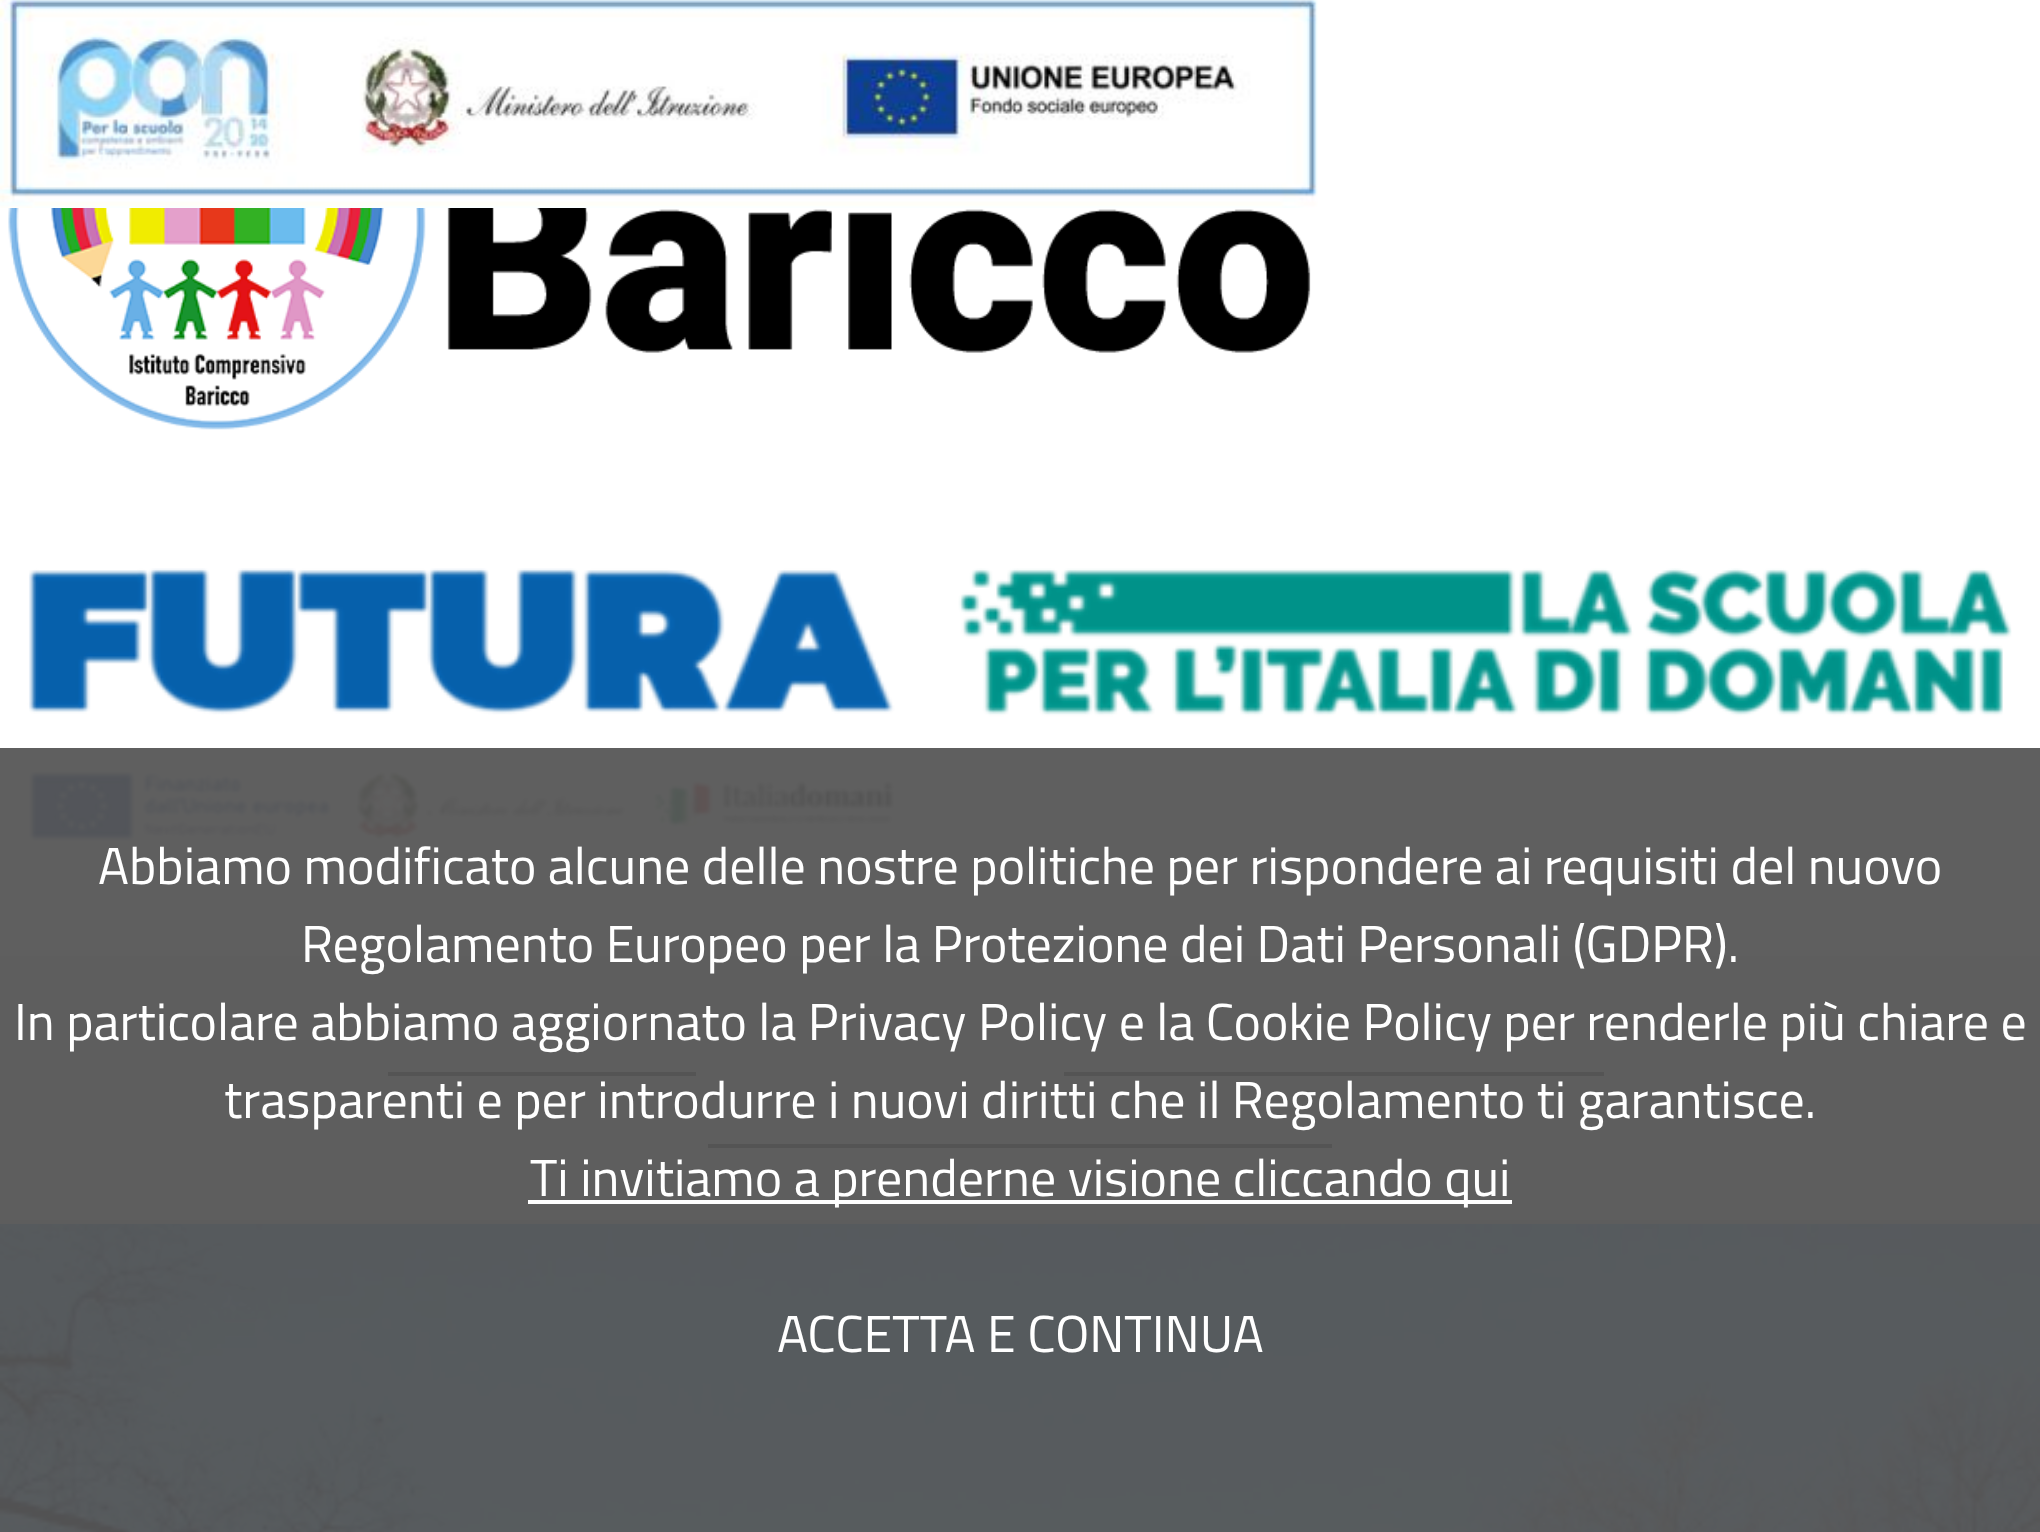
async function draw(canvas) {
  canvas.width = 2040
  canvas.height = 1532
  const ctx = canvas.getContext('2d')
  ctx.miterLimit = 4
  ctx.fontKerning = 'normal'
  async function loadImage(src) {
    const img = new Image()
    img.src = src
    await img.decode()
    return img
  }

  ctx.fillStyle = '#fff'
  ctx.fillRect(0, 0, 2040, 1532)
  ctx.drawImage(await loadImage('image0.png'), 0, 0, 1318, 208)
  ctx.drawImage(await loadImage('image1.png'), 8, 208, 1303, 222)
  ctx.drawImage(await loadImage('image2.png'), 27, 568, 1985, 275)
  ctx.fillStyle = '#e7e7e7'
  ctx.fillRect(0, 956, 2040, 264)
  ctx.fillStyle = '#dbdbdb'
  ctx.fillRect(0, 1220, 2040, 4)
  ctx.fillStyle = '#2d2d2d'
  ctx.fillRect(388, 1072, 308, 4)
  ctx.fillRect(1064, 1072, 540, 4)
  ctx.fillRect(708, 1144, 624, 4)
  ctx.drawImage(await loadImage('image3.png'), 0, 1224, 2040, 308)
  ctx.fillStyle = '#565656f2'
  ctx.fillRect(0, 748, 2040, 784)
  ctx.font = '52px Titillium Web'
  ctx.fillStyle = '#fff'
  ctx.fillText('Abbiamo modificato alcune delle nostre politiche per rispondere ai requisiti del nuovo', 98, 884)
  ctx.fillText('Regolamento Europeo per la Protezione dei Dati Personali (GDPR).', 301, 962)
  ctx.fillText('In particolare abbiamo aggiornato la Privacy Policy e la Cookie Policy per renderle più chiare e', 14, 1040)
  ctx.fillText('trasparenti e per introdurre i nuovi diritti che il Regolamento ti garantisce.', 224, 1118)
  ctx.fillRect(528, 1200, 984, 4)
  ctx.fillText('Ti invitiamo a prenderne visione cliccando qui', 530, 1196)
  ctx.fillText('ACCETTA E CONTINUA', 777, 1352)
}

draw(document.querySelector('canvas'))
